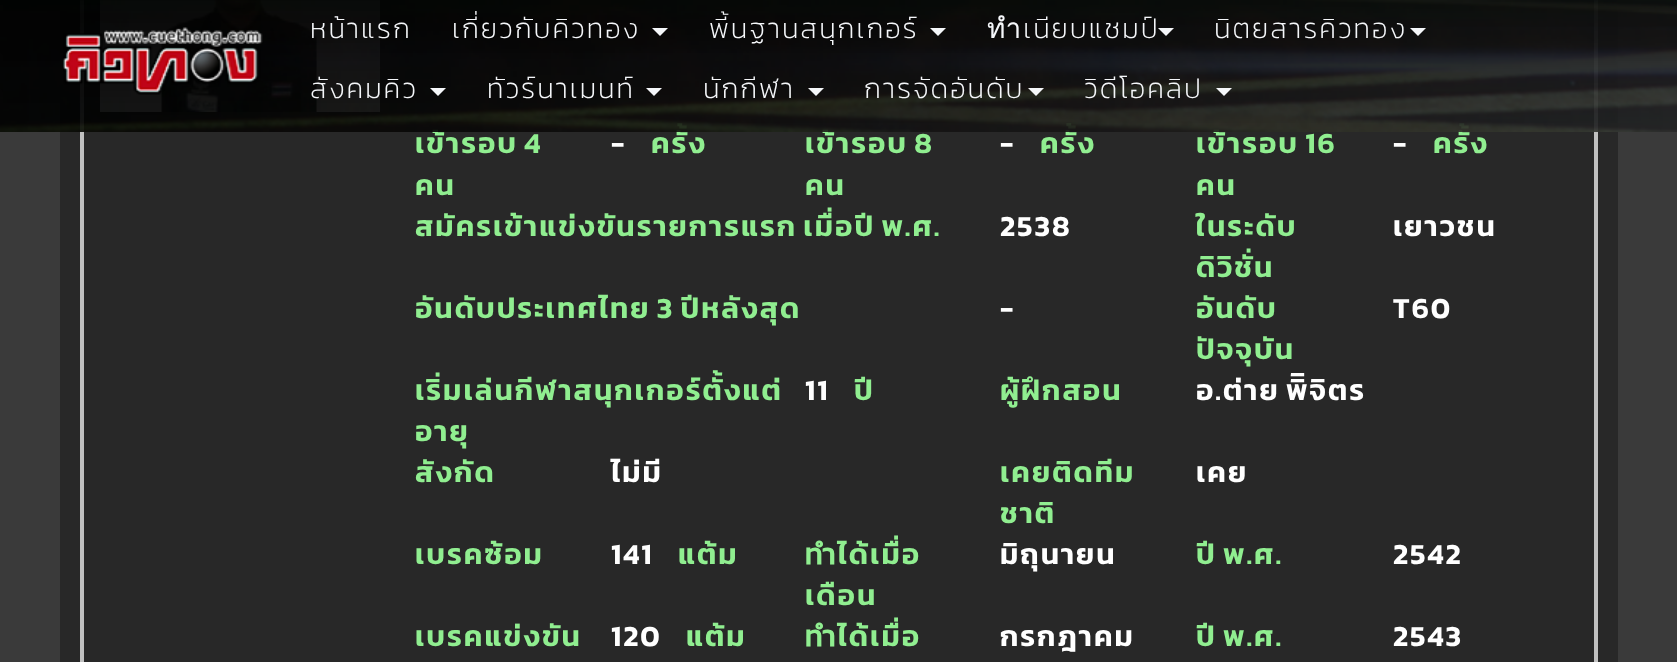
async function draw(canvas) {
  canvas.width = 1677
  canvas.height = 662
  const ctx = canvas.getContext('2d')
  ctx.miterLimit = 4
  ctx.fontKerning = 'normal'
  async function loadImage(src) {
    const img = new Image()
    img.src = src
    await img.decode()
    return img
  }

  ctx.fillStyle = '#3a3a3a'
  ctx.fillRect(0, 0, 1677, 662)
  ctx.fillStyle = '#282828'
  ctx.fillRect(60, 0, 1558, 662)
  ctx.strokeStyle = '#c0c0c0'
  ctx.lineWidth = 4
  ctx.strokeRect(82, -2, 1514, 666)
  ctx.drawImage(await loadImage('image2.png'), 100, 0, 280, 112)
  ctx.letterSpacing = '2px'
  ctx.wordSpacing = '-2px'
  ctx.font = '600 29.3px Kanit'
  ctx.fillStyle = '#90ee90'
  ctx.fillText('เข้ารอบ 4', 415, 153)
  ctx.wordSpacing = '0px'
  ctx.fillText('ครั้ง', 651, 153)
  ctx.wordSpacing = '-2px'
  ctx.fillText('เข้ารอบ 8', 805, 153)
  ctx.wordSpacing = '0px'
  ctx.fillText('ครั้ง', 1040, 153)
  ctx.wordSpacing = '-2px'
  ctx.fillText('เข้ารอบ 16', 1196, 153)
  ctx.wordSpacing = '0px'
  ctx.fillText('ครั้ง', 1433, 153)
  ctx.drawImage(await loadImage('image0.png'), 0, 0, 1677, 132)
  ctx.drawImage(await loadImage('image1.png'), 63, 27, 200, 68)
  ctx.font = '200 28px Kanit'
  ctx.fillStyle = '#f5f7fa'
  ctx.fillText('หน้าแรก', 310, 38)
  ctx.fillText('เกี่ยวกับคิวทอง', 452, 38)
  ctx.beginPath()
  ctx.moveTo(652, 28)
  ctx.lineTo(668, 28)
  ctx.lineTo(660, 36)
  ctx.closePath()
  ctx.fill()
  ctx.fillText('พี้นฐานสนุกเกอร์', 709, 38)
  ctx.beginPath()
  ctx.moveTo(930, 28)
  ctx.lineTo(946, 28)
  ctx.lineTo(938, 36)
  ctx.closePath()
  ctx.fill()
  ctx.fillText('ทำเนียบแชมป์', 987, 38)
  ctx.beginPath()
  ctx.moveTo(1158, 28)
  ctx.lineTo(1174, 28)
  ctx.lineTo(1166, 36)
  ctx.closePath()
  ctx.fill()
  ctx.fillText('นิตยสารคิวทอง', 1214, 38)
  ctx.beginPath()
  ctx.moveTo(1410, 28)
  ctx.lineTo(1426, 28)
  ctx.lineTo(1418, 36)
  ctx.closePath()
  ctx.fill()
  ctx.fillText('สังคมคิว', 310, 98)
  ctx.beginPath()
  ctx.moveTo(430, 88)
  ctx.lineTo(446, 88)
  ctx.lineTo(438, 96)
  ctx.closePath()
  ctx.fill()
  ctx.fillText('ทัวร์นาเมนท์', 487, 98)
  ctx.beginPath()
  ctx.moveTo(646, 88)
  ctx.lineTo(662, 88)
  ctx.lineTo(654, 96)
  ctx.closePath()
  ctx.fill()
  ctx.fillText('นักกีฬา', 703, 98)
  ctx.beginPath()
  ctx.moveTo(808, 88)
  ctx.lineTo(824, 88)
  ctx.lineTo(816, 96)
  ctx.closePath()
  ctx.fill()
  ctx.fillText('การจัดอันดับ', 864, 98)
  ctx.beginPath()
  ctx.moveTo(1028, 88)
  ctx.lineTo(1044, 88)
  ctx.lineTo(1036, 96)
  ctx.closePath()
  ctx.fill()
  ctx.fillText('วิดีโอคลิป', 1084, 98)
  ctx.beginPath()
  ctx.moveTo(1216, 88)
  ctx.lineTo(1232, 88)
  ctx.lineTo(1224, 96)
  ctx.closePath()
  ctx.fill()
  ctx.font = '600 29.3px Kanit'
  ctx.fillStyle = '#90ee90'
  ctx.fillText('คน', 415, 195)
  ctx.fillStyle = '#fff'
  ctx.fillText('-', 611, 153)
  ctx.fillStyle = '#90ee90'
  ctx.fillText('คน', 805, 195)
  ctx.fillStyle = '#fff'
  ctx.fillText('-', 1000, 153)
  ctx.fillStyle = '#90ee90'
  ctx.fillText('คน', 1196, 195)
  ctx.fillStyle = '#fff'
  ctx.fillText('-', 1393, 153)
  ctx.wordSpacing = '-2px'
  ctx.fillStyle = '#90ee90'
  ctx.fillText('สมัครเข้าแข่งขันรายการแรก เมื่อปี พ.ศ.', 415, 236)
  ctx.wordSpacing = '0px'
  ctx.fillStyle = '#fff'
  ctx.fillText('2538', 1000, 236)
  ctx.fillStyle = '#90ee90'
  ctx.fillText('ในระดับ', 1196, 236)
  ctx.fillText('ดิวิชั่น', 1196, 277)
  ctx.fillStyle = '#fff'
  ctx.fillText('เยาวชน', 1393, 236)
  ctx.wordSpacing = '-2px'
  ctx.fillStyle = '#90ee90'
  ctx.fillText('อันดับประเทศไทย 3 ปีหลังสุด', 415, 318)
  ctx.wordSpacing = '0px'
  ctx.fillStyle = '#fff'
  ctx.fillText('-', 1000, 318)
  ctx.fillStyle = '#90ee90'
  ctx.fillText('อันดับ', 1196, 318)
  ctx.fillText('ปัจจุบัน', 1196, 359)
  ctx.fillStyle = '#fff'
  ctx.fillText('T60', 1393, 318)
  ctx.fillStyle = '#90ee90'
  ctx.fillText('เริ่มเล่นกีฬาสนุกเกอร์ตั้งแต่', 415, 400)
  ctx.fillText('อายุ', 415, 441)
  ctx.fillStyle = '#fff'
  ctx.fillText('11', 805, 400)
  ctx.fillStyle = '#90ee90'
  ctx.fillText('ปี', 854, 400)
  ctx.fillText('ผู้ฝึกสอน', 1000, 400)
  ctx.wordSpacing = '-2px'
  ctx.fillStyle = '#fff'
  ctx.fillText('อ.ต่าย พิิจิตร', 1196, 400)
  ctx.wordSpacing = '0px'
  ctx.fillStyle = '#90ee90'
  ctx.fillText('สังกัด', 415, 482)
  ctx.fillStyle = '#fff'
  ctx.fillText('ไม่มี', 611, 482)
  ctx.fillStyle = '#90ee90'
  ctx.fillText('เคยติดทีม', 1000, 482)
  ctx.fillText('ชาติ', 1000, 523)
  ctx.fillStyle = '#fff'
  ctx.fillText('เคย', 1196, 482)
  ctx.fillStyle = '#90ee90'
  ctx.fillText('เบรคซ้อม', 415, 564)
  ctx.fillStyle = '#fff'
  ctx.fillText('141', 611, 564)
  ctx.fillStyle = '#90ee90'
  ctx.fillText('แต้ม', 678, 564)
  ctx.fillText('ทำได้เมื่อ', 805, 564)
  ctx.fillText('เดือน', 805, 605)
  ctx.fillStyle = '#fff'
  ctx.fillText('มิถุนายน', 1000, 564)
  ctx.wordSpacing = '-2px'
  ctx.fillStyle = '#90ee90'
  ctx.fillText('ปี พ.ศ.', 1196, 564)
  ctx.wordSpacing = '0px'
  ctx.fillStyle = '#fff'
  ctx.fillText('2542', 1393, 564)
  ctx.fillStyle = '#90ee90'
  ctx.fillText('เบรคแข่งขัน', 415, 646)
  ctx.fillStyle = '#fff'
  ctx.fillText('120', 611, 646)
  ctx.fillStyle = '#90ee90'
  ctx.fillText('แต้ม', 686, 646)
  ctx.fillText('ทำได้เมื่อ', 805, 646)
  ctx.fillStyle = '#fff'
  ctx.fillText('กรกฎาคม', 1000, 646)
  ctx.wordSpacing = '-2px'
  ctx.fillStyle = '#90ee90'
  ctx.fillText('ปี พ.ศ.', 1196, 646)
  ctx.wordSpacing = '0px'
  ctx.fillStyle = '#fff'
  ctx.fillText('2543', 1393, 646)
}

draw(document.querySelector('canvas'))
